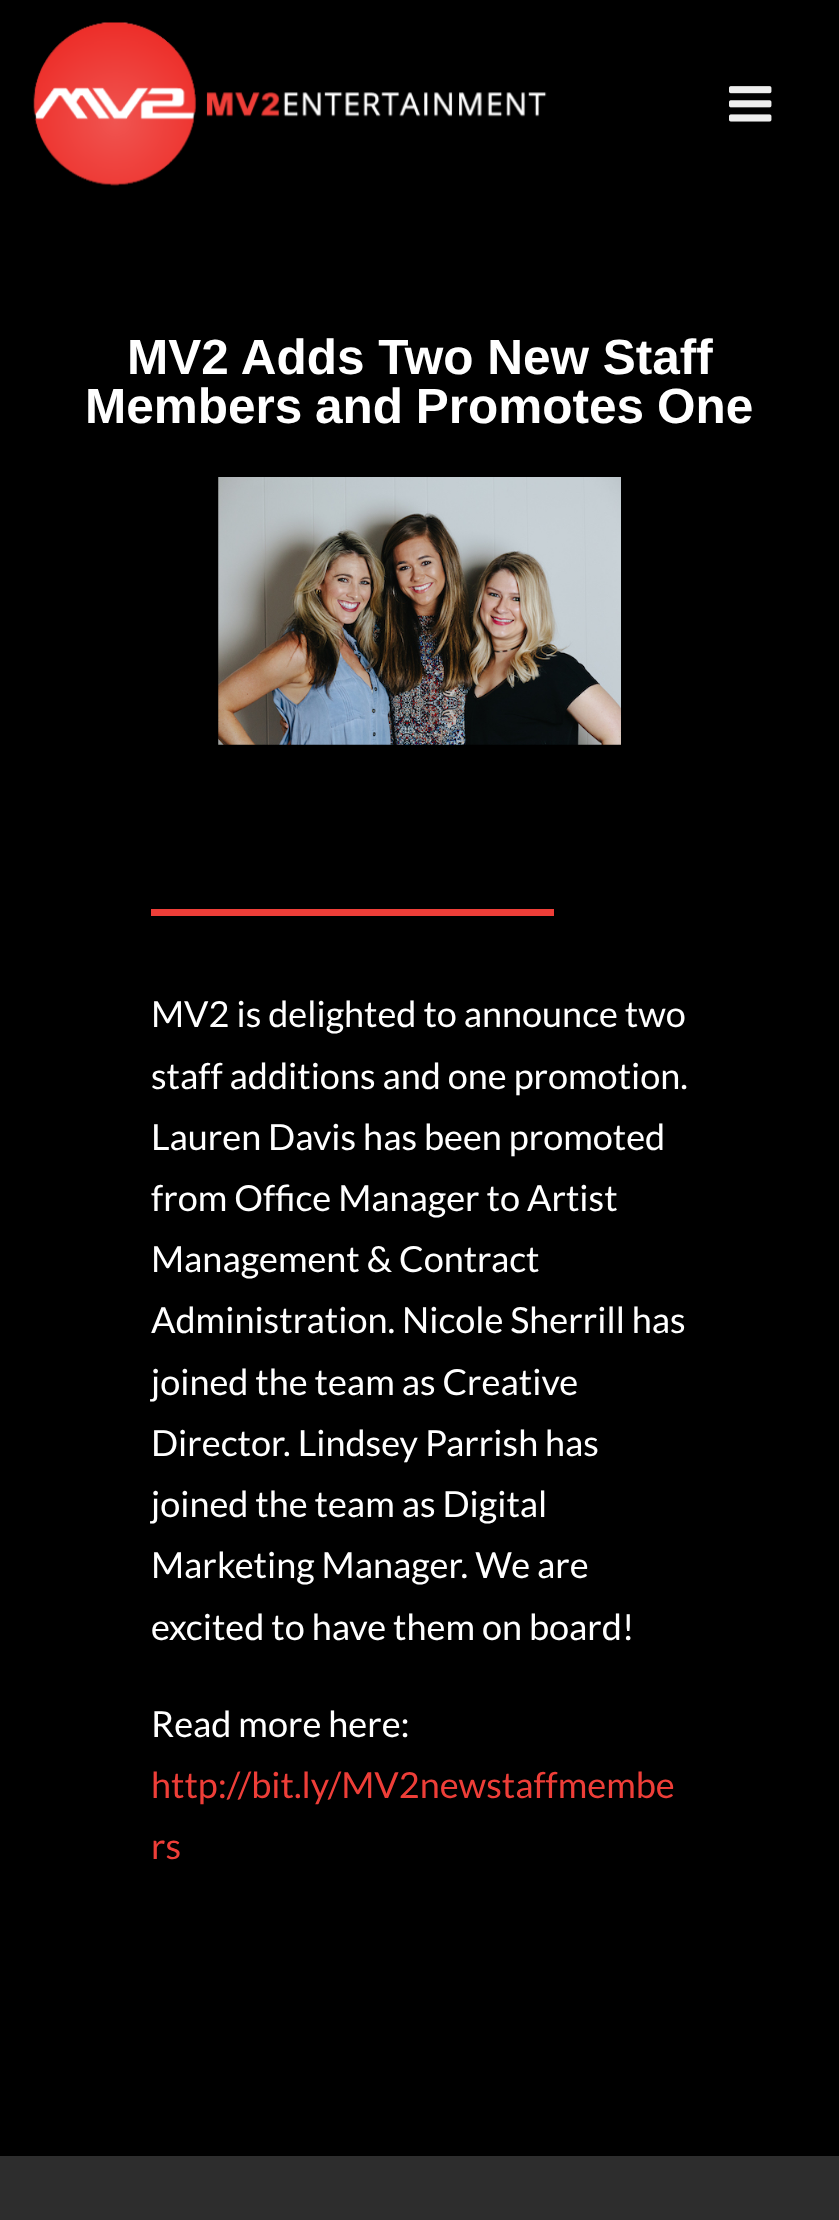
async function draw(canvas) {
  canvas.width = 839
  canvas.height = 2220
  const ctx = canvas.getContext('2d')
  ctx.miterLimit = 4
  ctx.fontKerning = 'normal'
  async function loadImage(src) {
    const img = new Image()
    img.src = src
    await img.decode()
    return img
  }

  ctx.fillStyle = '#000'
  ctx.fillRect(0, 0, 839, 2220)
  ctx.drawImage(await loadImage('image0.png'), 33, 22, 514, 164)
  ctx.drawImage(await loadImage('image1.png'), 729, 86, 43, 36)
  ctx.font = 'bold 49.5px Liberation Sans'
  ctx.fillStyle = '#fff'
  ctx.fillText('MV2 Adds Two New Staff', 127, 374)
  ctx.wordSpacing = '-1px'
  ctx.fillText('Members and Promotes One', 85, 423)
  ctx.drawImage(await loadImage('image2.png'), 218, 477, 403, 268)
  ctx.fillStyle = '#ee3e38'
  ctx.fillRect(151, 909, 403, 7)
  ctx.wordSpacing = '0px'
  ctx.font = '36px Lato'
  ctx.fillStyle = '#fff'
  ctx.fillText('MV2 is delighted to announce two', 151, 1027)
  ctx.fillText('staff additions and one promotion.', 151, 1089)
  ctx.fillText('Lauren Davis has been promoted', 151, 1150)
  ctx.fillText('from Office Manager to Artist', 151, 1211)
  ctx.fillText('Management & Contract', 151, 1272)
  ctx.fillText('Administration. Nicole Sherrill has', 151, 1333)
  ctx.fillText('joined the team as Creative', 151, 1395)
  ctx.fillText('Director. Lindsey Parrish has', 151, 1456)
  ctx.fillText('joined the team as Digital', 151, 1517)
  ctx.fillText('Marketing Manager. We are', 151, 1578)
  ctx.fillText('excited to have them on board!', 151, 1640)
  ctx.fillText('Read more here:', 151, 1737)
  ctx.fillStyle = '#ee3e38'
  ctx.fillText('http://bit.ly/MV2newstaffmembe', 151, 1798)
  ctx.fillText('rs', 151, 1859)
  ctx.fillStyle = '#2d2d2d'
  ctx.fillRect(0, 2156, 839, 64)
}

draw(document.querySelector('canvas'))
